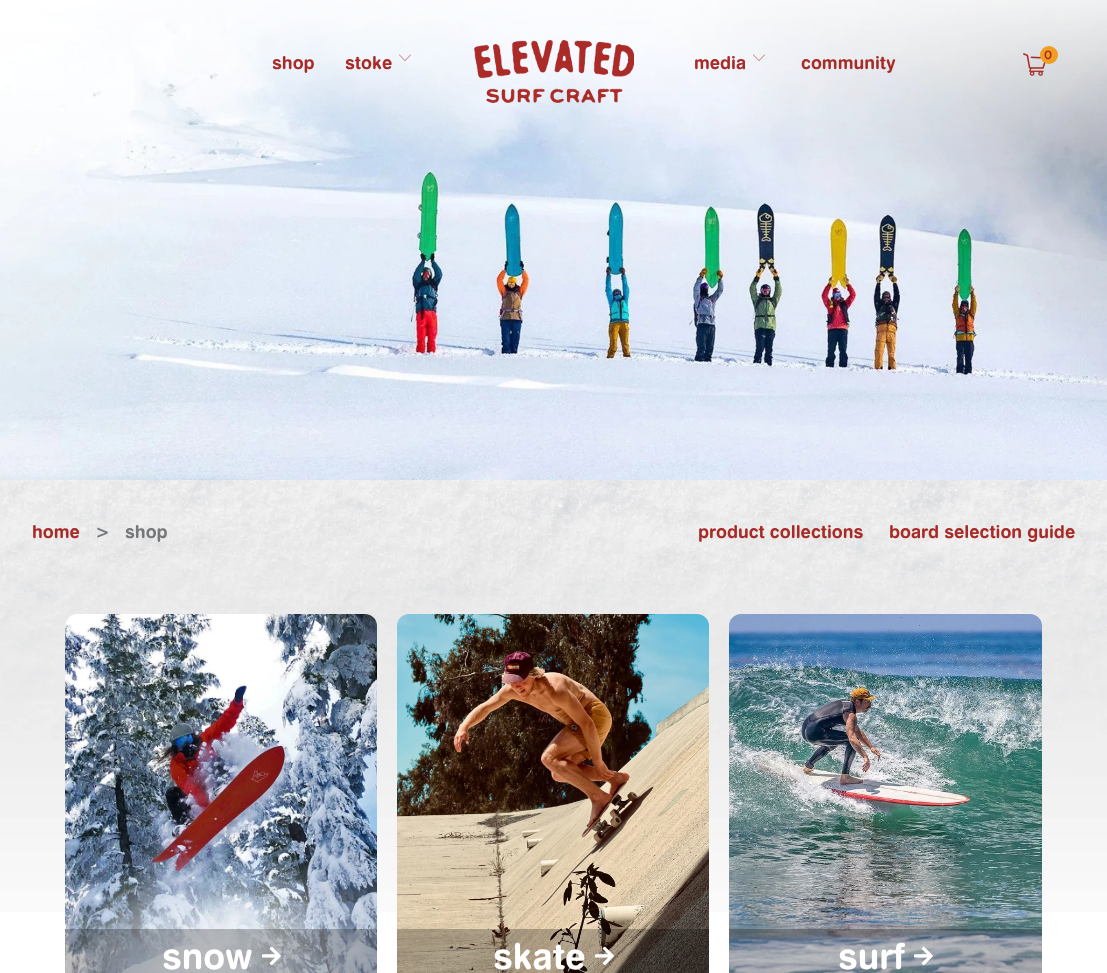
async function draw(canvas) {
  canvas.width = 1107
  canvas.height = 973
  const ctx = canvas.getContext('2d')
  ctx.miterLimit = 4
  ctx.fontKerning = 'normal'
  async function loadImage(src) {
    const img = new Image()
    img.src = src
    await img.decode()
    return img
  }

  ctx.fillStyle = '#fff'
  ctx.fillRect(0, 0, 1107, 973)
  ctx.drawImage(await loadImage('image4.png'), 0, 0, 1107, 480)
  ctx.font = 'bold 18px "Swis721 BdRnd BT"'
  ctx.fillStyle = '#a92b27'
  ctx.fillText('shop', 272, 69)
  ctx.fillText('stoke', 345, 69)
  ctx.drawImage(await loadImage('image0.png'), 399, 54, 12, 7)
  ctx.drawImage(await loadImage('image1.png'), 474, 40, 160, 63)
  ctx.fillText('media', 694, 69)
  ctx.drawImage(await loadImage('image2.png'), 753, 54, 12, 7)
  ctx.fillText('community', 801, 69)
  ctx.drawImage(await loadImage('image3.png'), 1023, 53, 23, 23)
  ctx.fillStyle = '#f19d21'
  ctx.beginPath()
  ctx.arc(1049, 55, 9, 0, 2 * Math.PI)
  ctx.fill()
  ctx.letterSpacing = '1px'
  ctx.font = '600 12px Montserrat'
  ctx.fillStyle = '#a92b27'
  ctx.fillText('0', 1044, 59)
  ctx.drawImage(await loadImage('image5.png'), 0, 480, 1107, 432)
  ctx.letterSpacing = '0px'
  ctx.font = 'bold 18px "Swis721 BdRnd BT"'
  ctx.fillText('home', 32, 538)
  ctx.fillStyle = '#75787b'
  ctx.fillText('>', 95, 538)
  ctx.fillText('shop', 125, 538)
  ctx.fillStyle = '#a92b27'
  ctx.fillText('product collections', 698, 538)
  ctx.fillText('board selection guide', 889, 538)
  ctx.drawImage(await loadImage('image6.png'), 65, 614, 312, 359)
  ctx.fillStyle = '#00000040'
  ctx.fillRect(65, 929, 312, 44)
  ctx.font = 'bold 36px "Swis721 BdRnd BT"'
  ctx.fillStyle = '#fff'
  ctx.fillText('snow', 162, 969)
  ctx.drawImage(await loadImage('image7.png'), 262, 946, 19, 20)
  ctx.drawImage(await loadImage('image8.png'), 397, 614, 312, 359)
  ctx.fillStyle = '#00000040'
  ctx.fillRect(397, 929, 312, 44)
  ctx.fillStyle = '#fff'
  ctx.fillText('skate', 493, 969)
  ctx.drawImage(await loadImage('image9.png'), 595, 946, 19, 20)
  ctx.drawImage(await loadImage('image10.png'), 729, 614, 313, 359)
  ctx.fillStyle = '#00000040'
  ctx.fillRect(729, 929, 313, 44)
  ctx.fillStyle = '#fff'
  ctx.fillText('surf', 838, 969)
  ctx.drawImage(await loadImage('image11.png'), 914, 946, 19, 20)
}

draw(document.querySelector('canvas'))
